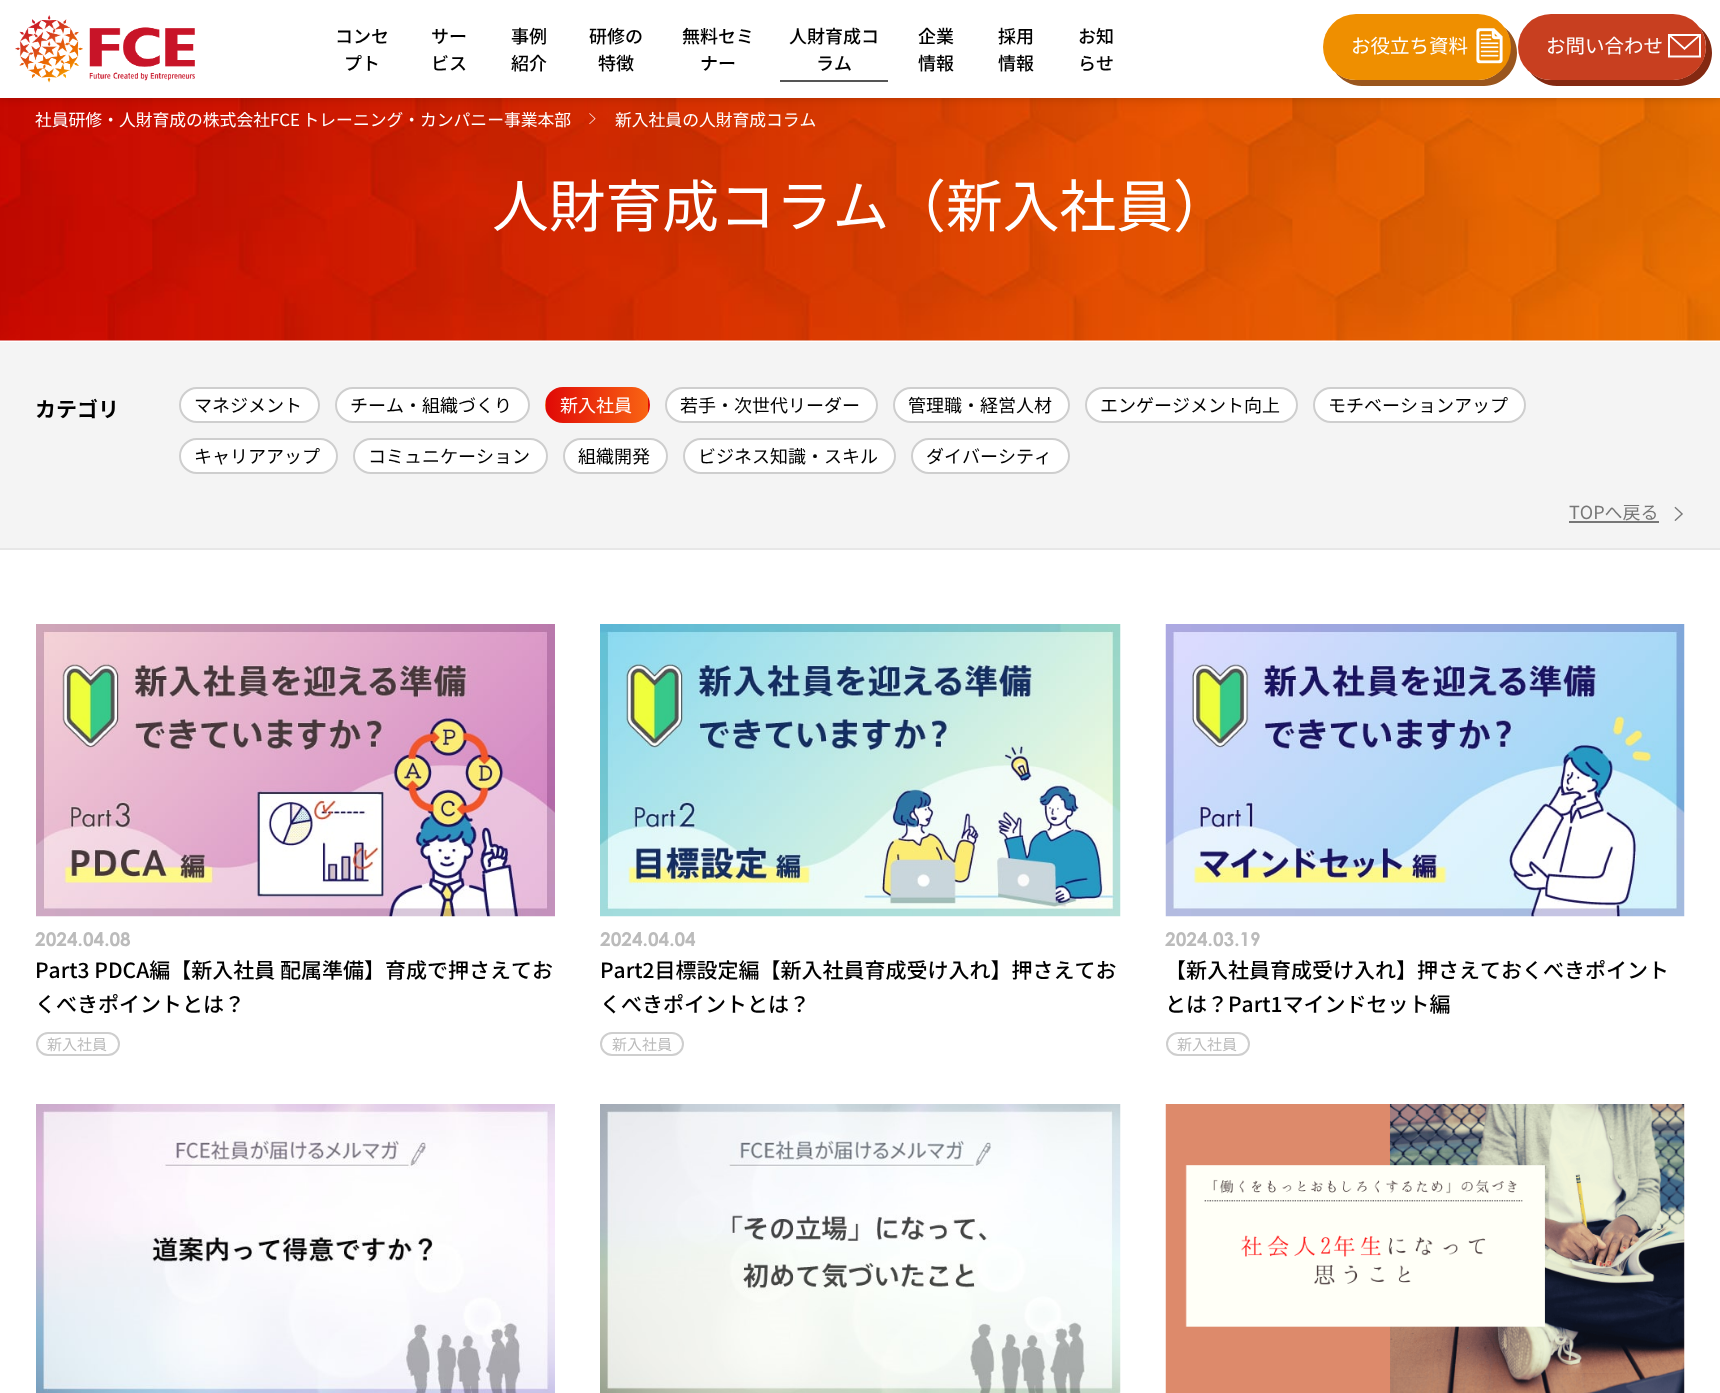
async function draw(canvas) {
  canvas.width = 1720
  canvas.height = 1393
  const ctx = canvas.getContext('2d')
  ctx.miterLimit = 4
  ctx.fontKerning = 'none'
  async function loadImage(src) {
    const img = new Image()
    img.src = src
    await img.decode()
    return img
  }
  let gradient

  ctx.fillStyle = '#fff'
  ctx.fillRect(0, 0, 1720, 1393)
  ctx.drawImage(await loadImage('image3.png'), 0, 98, 1720, 243)
  ctx.fillStyle = '#00000033'
  ctx.filter = 'blur(4px)'
  ctx.beginPath()
  ctx.rect(0, 0, 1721, 98)
  ctx.fill()
  ctx.filter = 'none'
  ctx.fillStyle = '#fff'
  ctx.fillRect(0, 0, 1720, 98)
  ctx.drawImage(await loadImage('image0.png'), 15, 15, 180, 68)
  ctx.font = '500 18px Noto Sans JP'
  ctx.fillStyle = '#000'
  ctx.fillText('コンセ', 335, 43)
  ctx.fillText('プト', 344, 70)
  ctx.fillText('サー', 431, 43)
  ctx.fillText('ビス', 431, 70)
  ctx.fillText('事例', 511, 43)
  ctx.fillText('紹介', 511, 70)
  ctx.fillText('研修の', 589, 43)
  ctx.fillText('特徴', 598, 70)
  ctx.fillText('無料セミ', 682, 43)
  ctx.fillText('ナー', 700, 70)
  ctx.fillText('人財育成コ', 789, 43)
  ctx.fillText('ラム', 816, 70)
  ctx.fillStyle = '#555'
  ctx.fillRect(780, 80, 108, 2)
  ctx.fillStyle = '#000'
  ctx.fillText('企業', 918, 43)
  ctx.fillText('情報', 918, 70)
  ctx.fillText('採用', 998, 43)
  ctx.fillText('情報', 998, 70)
  ctx.fillText('お知', 1078, 43)
  ctx.fillText('らせ', 1078, 70)
  ctx.fillStyle = '#9a561d'
  ctx.beginPath()
  ctx.moveTo(1335, 72)
  ctx.bezierCurveTo(1341, 80, 1351, 86, 1362, 86)
  ctx.lineTo(1484, 86)
  ctx.bezierCurveTo(1502, 86, 1517, 71, 1517, 53)
  ctx.bezierCurveTo(1517, 42, 1512, 33, 1504, 27)
  ctx.bezierCurveTo(1508, 32, 1510, 39, 1510, 46)
  ctx.bezierCurveTo(1510, 65, 1496, 80, 1478, 80)
  ctx.lineTo(1356, 80)
  ctx.bezierCurveTo(1348, 80, 1341, 77, 1335, 72)
  ctx.closePath()
  ctx.fill()
  ctx.fillStyle = '#ef8f00'
  ctx.beginPath()
  ctx.roundRect(1323, 14, 188, 66, 33)
  ctx.fill()
  ctx.font = '19.5px Noto Sans JP'
  ctx.fillStyle = '#fff'
  ctx.fillText('お役立ち資料', 1351, 53)
  ctx.drawImage(await loadImage('image1.png'), 1476, 28, 27, 36)
  ctx.fillStyle = '#842911'
  ctx.beginPath()
  ctx.moveTo(1530, 72)
  ctx.bezierCurveTo(1536, 80, 1546, 86, 1557, 86)
  ctx.lineTo(1679, 86)
  ctx.bezierCurveTo(1697, 86, 1712, 71, 1712, 53)
  ctx.bezierCurveTo(1712, 42, 1707, 33, 1699, 27)
  ctx.bezierCurveTo(1703, 32, 1706, 39, 1706, 46)
  ctx.bezierCurveTo(1706, 65, 1691, 80, 1672, 80)
  ctx.lineTo(1551, 80)
  ctx.bezierCurveTo(1543, 80, 1536, 77, 1530, 72)
  ctx.closePath()
  ctx.fill()
  ctx.fillStyle = '#c83f20'
  ctx.beginPath()
  ctx.roundRect(1518, 14, 188, 66, 33)
  ctx.fill()
  ctx.fillStyle = '#fff'
  ctx.fillText('お問い合わせ', 1546, 53)
  ctx.beginPath()
  ctx.moveTo(1668, 34)
  ctx.lineTo(1668, 57.5)
  ctx.lineTo(1701, 57.5)
  ctx.lineTo(1701, 34)
  ctx.closePath()
  ctx.moveTo(1697.5, 36)
  ctx.lineTo(1684.5, 47.5)
  ctx.lineTo(1671.5, 36)
  ctx.closePath()
  ctx.moveTo(1670, 55.5)
  ctx.lineTo(1670, 37)
  ctx.lineTo(1684.5, 50)
  ctx.lineTo(1699, 37)
  ctx.lineTo(1699, 55.5)
  ctx.closePath()
  ctx.fill()
  ctx.wordSpacing = '-1px'
  ctx.font = '16.8px Noto Sans JP'
  ctx.fillText('社員研修・人財育成の株式会社FCE トレーニング・カンパニー事業本部', 35, 126)
  ctx.drawImage(await loadImage('image2.png'), 589, 113, 7, 12)
  ctx.wordSpacing = '0px'
  ctx.fillText('新入社員の人財育成コラム', 615, 126)
  ctx.font = '56.75px Noto Sans JP'
  ctx.fillText('人財育成コラム（新入社員）', 492, 227)
  ctx.fillStyle = '#f4f4f4'
  ctx.fillRect(0, 342, 1720, 206)
  ctx.fillStyle = '#e7e7e7'
  ctx.fillRect(0, 548, 1720, 2)
  ctx.font = 'bold 21px Noto Sans JP'
  ctx.fillStyle = '#000'
  ctx.fillText('カテゴリ', 35, 417)
  ctx.fillStyle = '#fff'
  ctx.beginPath()
  ctx.roundRect(180, 388, 139, 34, 17)
  ctx.fill()
  ctx.strokeStyle = '#cecece'
  ctx.lineWidth = 2
  ctx.stroke()
  ctx.font = '18px Noto Sans JP'
  ctx.fillStyle = '#000'
  ctx.fillText('マネジメント', 194, 412)
  ctx.fillStyle = '#fff'
  ctx.beginPath()
  ctx.roundRect(336, 388, 193, 34, 17)
  ctx.fill()
  ctx.stroke()
  ctx.fillStyle = '#000'
  ctx.fillText('チーム・組織づくり', 350, 412)
  ctx.save()
  ctx.beginPath()
  ctx.roundRect(545, 387, 105, 36, 18)
  ctx.clip()
  gradient = ctx.createLinearGradient(444, 405, 546, 405)
  gradient.addColorStop(0, '#e00906')
  gradient.addColorStop(1, '#f96413')
  ctx.fillStyle = gradient
  ctx.fillRect(545, 399, 1, 12)
  gradient = ctx.createLinearGradient(546, 405, 648, 405)
  gradient.addColorStop(0, '#e00906')
  gradient.addColorStop(1, '#f96413')
  ctx.fillStyle = gradient
  ctx.fillRect(546, 387, 102, 36)
  gradient = ctx.createLinearGradient(648, 405, 750, 405)
  gradient.addColorStop(0, '#e00906')
  gradient.addColorStop(1, '#f96413')
  ctx.fillStyle = gradient
  ctx.fillRect(648, 397, 2, 16)
  ctx.restore()
  ctx.fillStyle = '#fff'
  ctx.fillText('新入社員', 560, 412)
  ctx.beginPath()
  ctx.roundRect(666, 388, 211, 34, 17)
  ctx.fill()
  ctx.stroke()
  ctx.fillStyle = '#000'
  ctx.fillText('若手・次世代リーダー', 680, 412)
  ctx.fillStyle = '#fff'
  ctx.beginPath()
  ctx.roundRect(894, 388, 175, 34, 17)
  ctx.fill()
  ctx.stroke()
  ctx.fillStyle = '#000'
  ctx.fillText('管理職・経営人材', 908, 412)
  ctx.fillStyle = '#fff'
  ctx.beginPath()
  ctx.roundRect(1086, 388, 211, 34, 17)
  ctx.fill()
  ctx.stroke()
  ctx.fillStyle = '#000'
  ctx.fillText('エンゲージメント向上', 1100, 412)
  ctx.fillStyle = '#fff'
  ctx.beginPath()
  ctx.roundRect(1314, 388, 211, 34, 17)
  ctx.fill()
  ctx.stroke()
  ctx.fillStyle = '#000'
  ctx.fillText('モチベーションアップ', 1328, 412)
  ctx.fillStyle = '#fff'
  ctx.beginPath()
  ctx.roundRect(180, 439, 157, 34, 17)
  ctx.fill()
  ctx.stroke()
  ctx.fillStyle = '#000'
  ctx.fillText('キャリアアップ', 194, 463)
  ctx.fillStyle = '#fff'
  ctx.beginPath()
  ctx.roundRect(354, 439, 193, 34, 17)
  ctx.fill()
  ctx.stroke()
  ctx.fillStyle = '#000'
  ctx.fillText('コミュニケーション', 368, 463)
  ctx.fillStyle = '#fff'
  ctx.beginPath()
  ctx.roundRect(564, 439, 103, 34, 17)
  ctx.fill()
  ctx.stroke()
  ctx.fillStyle = '#000'
  ctx.fillText('組織開発', 578, 463)
  ctx.fillStyle = '#fff'
  ctx.beginPath()
  ctx.roundRect(684, 439, 211, 34, 17)
  ctx.fill()
  ctx.stroke()
  ctx.fillStyle = '#000'
  ctx.fillText('ビジネス知識・スキル', 698, 463)
  ctx.fillStyle = '#fff'
  ctx.beginPath()
  ctx.roundRect(912, 439, 157, 34, 17)
  ctx.fill()
  ctx.stroke()
  ctx.fillStyle = '#000'
  ctx.fillText('ダイバーシティ', 926, 463)
  ctx.fillStyle = '#777'
  ctx.fillText('TOPへ戻る', 1569, 519)
  ctx.fillRect(1569, 521, 90, 2)
  ctx.drawImage(await loadImage('image4.png'), 1674, 506, 9, 15)
  ctx.drawImage(await loadImage('image5.png'), 36, 624, 519, 293)
  ctx.font = 'bold 19px Century Gothic'
  ctx.fillStyle = '#bbb'
  ctx.fillText('2024.04.08', 35, 946)
  ctx.font = '500 21px Noto Sans JP'
  ctx.fillStyle = '#000'
  ctx.fillText('Part3 PDCA編【新入社員 配属準備】育成で押さえてお', 35, 978)
  ctx.fillText('くべきポイントとは？', 35, 1012)
  ctx.beginPath()
  ctx.roundRect(37, 1033, 82, 22, 11)
  ctx.stroke()
  ctx.font = '15px Noto Sans JP'
  ctx.fillStyle = '#bbb'
  ctx.fillText('新入社員', 47, 1050)
  ctx.drawImage(await loadImage('image6.png'), 600, 624, 521, 293)
  ctx.font = 'bold 19px Century Gothic'
  ctx.fillText('2024.04.04', 600, 946)
  ctx.font = '500 21px Noto Sans JP'
  ctx.fillStyle = '#000'
  ctx.fillText('Part2目標設定編【新入社員育成受け入れ】押さえてお', 600, 978)
  ctx.fillText('くべきポイントとは？', 600, 1012)
  ctx.beginPath()
  ctx.roundRect(601, 1033, 82, 22, 11)
  ctx.stroke()
  ctx.font = '15px Noto Sans JP'
  ctx.fillStyle = '#bbb'
  ctx.fillText('新入社員', 612, 1050)
  ctx.drawImage(await loadImage('image7.png'), 1165, 624, 520, 293)
  ctx.font = 'bold 19px Century Gothic'
  ctx.fillText('2024.03.19', 1165, 946)
  ctx.font = '500 21px Noto Sans JP'
  ctx.fillStyle = '#000'
  ctx.fillText('【新入社員育成受け入れ】押さえておくべきポイント', 1165, 978)
  ctx.fillText('とは？Part1マインドセット編', 1165, 1012)
  ctx.beginPath()
  ctx.roundRect(1167, 1033, 82, 22, 11)
  ctx.stroke()
  ctx.font = '15px Noto Sans JP'
  ctx.fillStyle = '#bbb'
  ctx.fillText('新入社員', 1177, 1050)
  ctx.drawImage(await loadImage('image8.png'), 36, 1104, 519, 289)
  ctx.drawImage(await loadImage('image9.png'), 600, 1104, 521, 289)
  ctx.drawImage(await loadImage('image10.png'), 1165, 1104, 520, 289)
}

draw(document.querySelector('canvas'))
